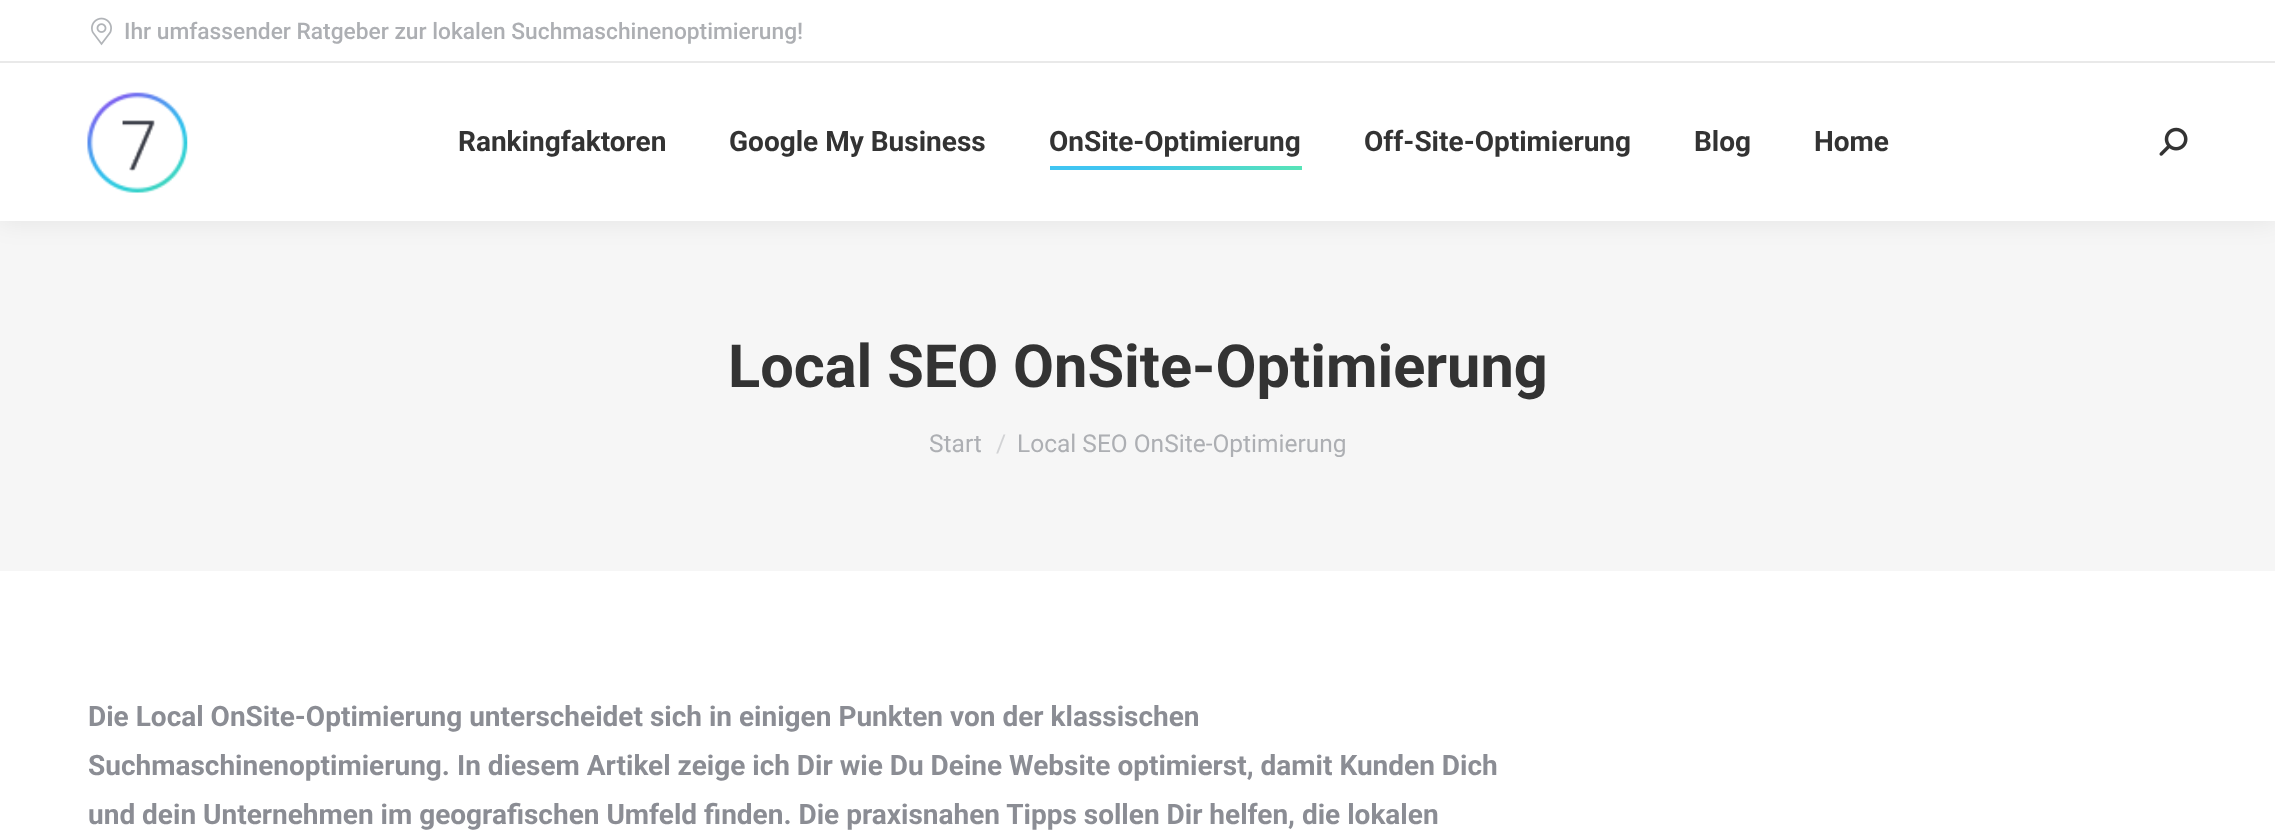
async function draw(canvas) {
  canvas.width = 2275
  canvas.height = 837
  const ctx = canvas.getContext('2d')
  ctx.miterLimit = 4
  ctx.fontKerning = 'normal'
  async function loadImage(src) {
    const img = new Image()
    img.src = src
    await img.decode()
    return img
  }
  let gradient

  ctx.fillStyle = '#fff'
  ctx.fillRect(0, 0, 2275, 837)
  ctx.fillStyle = '#f6f6f6'
  ctx.fillRect(0, 221, 2275, 350)
  ctx.fillStyle = '#00000012'
  ctx.filter = 'blur(13px)'
  ctx.beginPath()
  ctx.rect(-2, -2, 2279, 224)
  ctx.fill()
  ctx.filter = 'none'
  ctx.fillStyle = '#fff'
  ctx.fillRect(0, 0, 2275, 221)
  ctx.drawImage(await loadImage('image0.png'), 91, 17, 21, 29)
  ctx.font = '500 22.75px Roboto'
  ctx.fillStyle = '#adafb3'
  ctx.fillText('Ihr umfassender Ratgeber zur lokalen Suchmaschinenoptimierung!', 124, 39)
  ctx.fillStyle = '#e9e9e9'
  ctx.fillRect(0, 61, 2275, 2)
  ctx.drawImage(await loadImage('image1.png'), 87, 92, 101, 101)
  ctx.font = 'bold 28px Roboto'
  ctx.fillStyle = '#333'
  ctx.fillText('Rankingfaktoren', 458, 151)
  ctx.fillText('Google My Business', 729, 151)
  ctx.fillText('OnSite-Optimierung', 1049, 151)
  gradient = ctx.createLinearGradient(1050, 168, 1302, 168)
  gradient.addColorStop(0.3, '#40c5f2')
  gradient.addColorStop(1, '#57e4b7')
  ctx.fillStyle = gradient
  ctx.fillRect(1050, 166, 252, 4)
  ctx.fillStyle = '#333'
  ctx.fillText('Off-Site-Optimierung', 1364, 151)
  ctx.fillText('Blog', 1694, 151)
  ctx.fillText('Home', 1814, 151)
  ctx.drawImage(await loadImage('image2.png'), 2159, 127, 29, 29)
  ctx.font = 'bold 59.5px Roboto'
  ctx.fillText('Local SEO OnSite-Optimierung', 728, 387)
  ctx.font = '24.5px Roboto'
  ctx.fillStyle = '#adafb3'
  ctx.fillText('Start', 929, 452)
  ctx.fillStyle = '#d2d3d5'
  ctx.fillText('/', 996, 452)
  ctx.fillStyle = '#adafb3'
  ctx.fillText('Local SEO OnSite-Optimierung', 1017, 452)
  ctx.font = 'bold 28px Roboto'
  ctx.fillStyle = '#8b8d94'
  ctx.fillText('Die Local OnSite-Optimierung unterscheidet sich in einigen Punkten von der klassischen', 88, 726)
  ctx.fillText('Suchmaschinenoptimierung. In diesem Artikel zeige ich Dir wie Du Deine Website optimierst, damit Kunden Dich', 88, 775)
  ctx.fillText('und dein Unternehmen im geografischen Umfeld finden. Die praxisnahen Tipps sollen Dir helfen, die lokalen', 88, 824)
}

draw(document.querySelector('canvas'))
